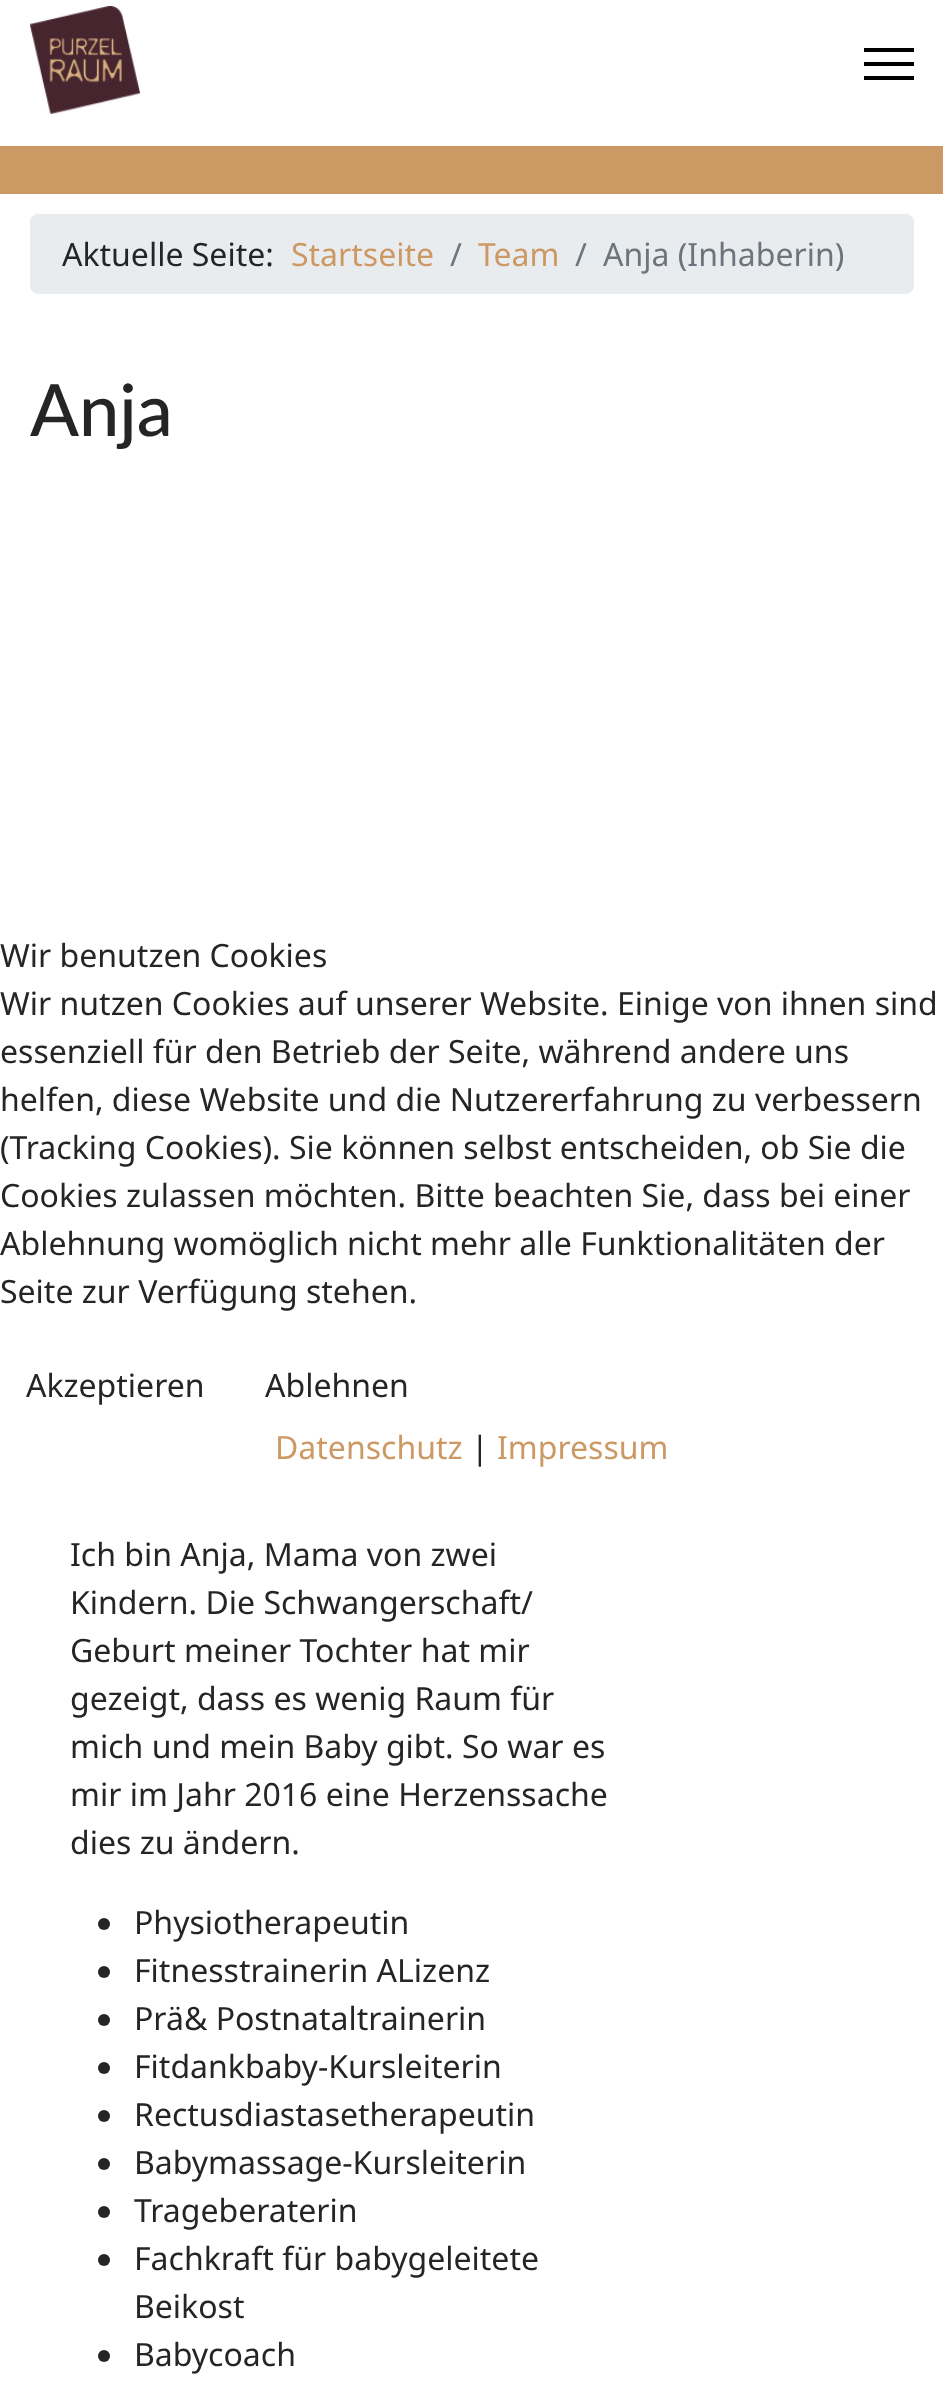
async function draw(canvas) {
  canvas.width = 943
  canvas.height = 2401
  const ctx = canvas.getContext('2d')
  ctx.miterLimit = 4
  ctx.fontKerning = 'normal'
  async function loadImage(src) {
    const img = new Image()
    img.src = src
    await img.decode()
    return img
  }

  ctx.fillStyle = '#fff'
  ctx.fillRect(0, 0, 943, 2401)
  ctx.drawImage(await loadImage('image0.png'), 30, 6, 111, 108)
  ctx.fillStyle = '#000'
  ctx.fillRect(864, 48, 50, 4)
  ctx.fillRect(864, 62, 50, 4)
  ctx.fillRect(864, 76, 50, 4)
  ctx.fillStyle = '#cc9965'
  ctx.fillRect(0, 146, 943, 48)
  ctx.fillStyle = '#e9ecef'
  ctx.beginPath()
  ctx.roundRect(30, 214, 884, 80, 8)
  ctx.fill()
  ctx.font = '32px Noto Sans'
  ctx.fillStyle = '#252525'
  ctx.fillText('Aktuelle Seite:', 62, 266)
  ctx.fillStyle = '#cc9965'
  ctx.fillText('Startseite', 291, 266)
  ctx.fillStyle = '#6c757d'
  ctx.fillText('/', 450, 266)
  ctx.fillStyle = '#cc9965'
  ctx.fillText('Team', 478, 266)
  ctx.fillStyle = '#6c757d'
  ctx.fillText('/', 575, 266)
  ctx.fillText('Anja (Inhaberin)', 603, 266)
  ctx.font = '500 72px Lato'
  ctx.fillStyle = '#252525'
  ctx.fillText('Anja', 30, 436)
  ctx.font = '32px Noto Sans'
  ctx.fillText('Ich bin Anja, Mama von zwei', 70, 1566)
  ctx.fillText('Kindern. Die Schwangerschaft/', 70, 1614)
  ctx.fillText('Geburt meiner Tochter hat mir', 70, 1662)
  ctx.fillText('gezeigt, dass es wenig Raum für', 70, 1710)
  ctx.fillText('mich und mein Baby gibt. So war es', 70, 1758)
  ctx.fillText('mir im Jahr 2016 eine Herzenssache', 70, 1806)
  ctx.fillText('dies zu ändern.', 70, 1854)
  ctx.beginPath()
  ctx.arc(104, 1924, 6, 0, 2 * Math.PI)
  ctx.fill()
  ctx.fillText('Physiotherapeutin', 134, 1934)
  ctx.beginPath()
  ctx.arc(104, 1972, 6, 0, 2 * Math.PI)
  ctx.fill()
  ctx.fillText('Fitnesstrainerin ALizenz', 134, 1982)
  ctx.beginPath()
  ctx.arc(104, 2020, 6, 0, 2 * Math.PI)
  ctx.fill()
  ctx.fillText('Prä& Postnataltrainerin', 134, 2030)
  ctx.beginPath()
  ctx.arc(104, 2068, 6, 0, 2 * Math.PI)
  ctx.fill()
  ctx.fillText('Fitdankbaby-Kursleiterin', 134, 2078)
  ctx.beginPath()
  ctx.arc(104, 2116, 6, 0, 2 * Math.PI)
  ctx.fill()
  ctx.fillText('Rectusdiastasetherapeutin', 134, 2126)
  ctx.beginPath()
  ctx.arc(104, 2164, 6, 0, 2 * Math.PI)
  ctx.fill()
  ctx.fillText('Babymassage-Kursleiterin', 134, 2174)
  ctx.beginPath()
  ctx.arc(104, 2212, 6, 0, 2 * Math.PI)
  ctx.fill()
  ctx.fillText('Trageberaterin', 134, 2222)
  ctx.beginPath()
  ctx.arc(104, 2260, 6, 0, 2 * Math.PI)
  ctx.fill()
  ctx.fillText('Fachkraft für babygeleitete', 134, 2270)
  ctx.fillText('Beikost', 134, 2318)
  ctx.beginPath()
  ctx.arc(104, 2356, 6, 0, 2 * Math.PI)
  ctx.fill()
  ctx.fillText('Babycoach', 134, 2366)
  ctx.fillText('Wir benutzen Cookies', 0, 967)
  ctx.fillText('Wir nutzen Cookies auf unserer Website. Einige von ihnen sind', 0, 1015)
  ctx.fillText('essenziell für den Betrieb der Seite, während andere uns', 0, 1063)
  ctx.fillText('helfen, diese Website und die Nutzererfahrung zu verbessern', 0, 1111)
  ctx.fillText('(Tracking Cookies). Sie können selbst entscheiden, ob Sie die', 0, 1159)
  ctx.fillText('Cookies zulassen möchten. Bitte beachten Sie, dass bei einer', 0, 1207)
  ctx.fillText('Ablehnung womöglich nicht mehr alle Funktionalitäten der', 0, 1255)
  ctx.fillText('Seite zur Verfügung stehen.', 0, 1303)
  ctx.fillText('Akzeptieren', 26, 1397)
  ctx.fillText('Ablehnen', 265, 1397)
  ctx.fillStyle = '#cc9965'
  ctx.fillText('Datenschutz', 275, 1459)
  ctx.fillStyle = '#252525'
  ctx.fillText('|', 471, 1459)
  ctx.fillStyle = '#cc9965'
  ctx.fillText('Impressum', 497, 1459)
}

draw(document.querySelector('canvas'))
